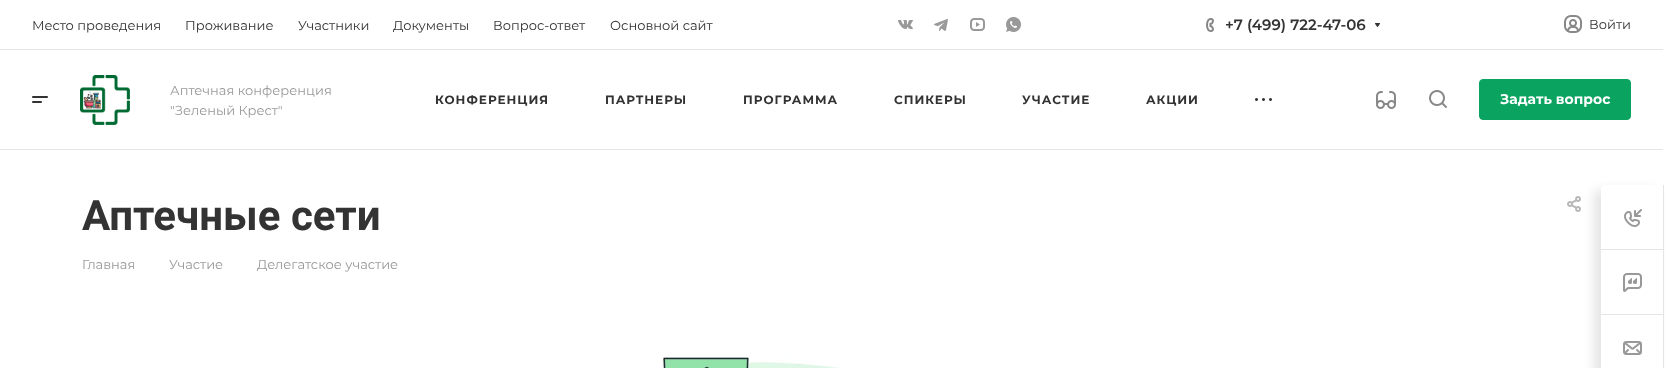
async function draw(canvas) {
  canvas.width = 1669
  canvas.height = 368
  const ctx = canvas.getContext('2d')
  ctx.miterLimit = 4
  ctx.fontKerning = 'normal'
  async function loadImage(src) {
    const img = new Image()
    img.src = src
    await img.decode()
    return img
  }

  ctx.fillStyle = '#fff'
  ctx.fillRect(0, 0, 1669, 368)
  ctx.fillStyle = '#e5e5e5'
  ctx.fillRect(0, 49, 1663, 1)
  ctx.font = '13px Montserrat'
  ctx.fillStyle = '#333'
  ctx.fillText('Место проведения', 32, 30)
  ctx.fillText('Проживание', 185, 30)
  ctx.fillText('Участники', 298, 30)
  ctx.fillText('Документы', 393, 30)
  ctx.fillText('Вопрос-ответ', 493, 30)
  ctx.fillText('Основной сайт', 610, 30)
  ctx.drawImage(await loadImage('image0.png'), 898, 20, 15, 9)
  ctx.drawImage(await loadImage('image1.png'), 934, 19, 14, 12)
  ctx.drawImage(await loadImage('image2.png'), 970, 18, 15, 13)
  ctx.drawImage(await loadImage('image3.png'), 1006, 17, 15, 15)
  ctx.drawImage(await loadImage('image4.png'), 1206, 18, 8, 14)
  ctx.font = '600 15px Montserrat'
  ctx.fillText('+7 (499) 722-47-06', 1225, 30)
  ctx.drawImage(await loadImage('image5.png'), 1375, 23, 5, 4)
  ctx.drawImage(await loadImage('image6.png'), 1564, 15, 18, 18)
  ctx.font = '13px Montserrat'
  ctx.fillText('Войти', 1589, 29)
  ctx.fillStyle = '#e5e5e5'
  ctx.fillRect(0, 149, 1663, 1)
  ctx.drawImage(await loadImage('image7.png'), 32, 96, 16, 7)
  ctx.drawImage(await loadImage('image8.png'), 80, 75, 50, 50)
  ctx.fillStyle = '#999'
  ctx.fillText('Аптечная конференция', 170, 95)
  ctx.fillText('"Зеленый Крест"', 170, 115)
  ctx.letterSpacing = '1px'
  ctx.font = 'bold 12px Montserrat'
  ctx.fillStyle = '#333'
  ctx.fillText('КОНФЕРЕНЦИЯ', 435, 104)
  ctx.fillText('ПАРТНЕРЫ', 605, 104)
  ctx.fillText('ПРОГРАММА', 743, 104)
  ctx.fillText('СПИКЕРЫ', 894, 104)
  ctx.fillText('УЧАСТИЕ', 1022, 104)
  ctx.fillText('АКЦИИ', 1146, 104)
  ctx.drawImage(await loadImage('image9.png'), 1255, 98, 17, 3)
  ctx.drawImage(await loadImage('image10.png'), 1376, 91, 20, 18)
  ctx.drawImage(await loadImage('image11.png'), 1429, 90, 18, 18)
  ctx.fillStyle = '#0aa360'
  ctx.beginPath()
  ctx.roundRect(1479.5, 79.5, 151, 40, 3.5)
  ctx.fill()
  ctx.strokeStyle = '#0aa360'
  ctx.stroke()
  ctx.letterSpacing = '0px'
  ctx.font = 'bold 14px Montserrat'
  ctx.fillStyle = '#fff'
  ctx.fillText('Задать вопрос', 1500, 104)
  ctx.font = 'bold 42px Roboto'
  ctx.fillStyle = '#333'
  ctx.fillText('Аптечные сети', 82, 230)
  ctx.drawImage(await loadImage('image12.png'), 1567, 196, 14, 16)
  ctx.font = '13px Montserrat'
  ctx.fillStyle = '#999'
  ctx.fillText('Главная', 82, 269)
  ctx.fillText('Участие', 169, 269)
  ctx.fillText('Делегатское участие', 257, 269)
  ctx.drawImage(await loadImage('image13.png'), 659, 355, 182, 13)
  ctx.fillStyle = '#0000001a'
  ctx.filter = 'blur(5.5px)'
  ctx.beginPath()
  ctx.roundRect(1594, 190, 63, 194, 4)
  ctx.fill()
  ctx.filter = 'none'
  ctx.fillStyle = '#fff'
  ctx.beginPath()
  ctx.moveTo(1605, 185)
  ctx.lineTo(1664, 185)
  ctx.lineTo(1664, 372)
  ctx.lineTo(1605, 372)
  ctx.bezierCurveTo(1603, 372, 1601, 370, 1601, 368)
  ctx.lineTo(1601, 189)
  ctx.bezierCurveTo(1601, 187, 1603, 185, 1605, 185)
  ctx.closePath()
  ctx.fill()
  ctx.drawImage(await loadImage('image14.png'), 1624, 209, 18, 18)
  ctx.fillStyle = '#e5e5e5'
  ctx.fillRect(1601, 249, 63, 1)
  ctx.fillRect(1601, 314, 63, 1)
  ctx.fillRect(1663, 185, 1, 183)
  ctx.drawImage(await loadImage('image15.png'), 1623, 273, 19, 19)
  ctx.drawImage(await loadImage('image16.png'), 1623, 341, 19, 14)
}

draw(document.querySelector('canvas'))
